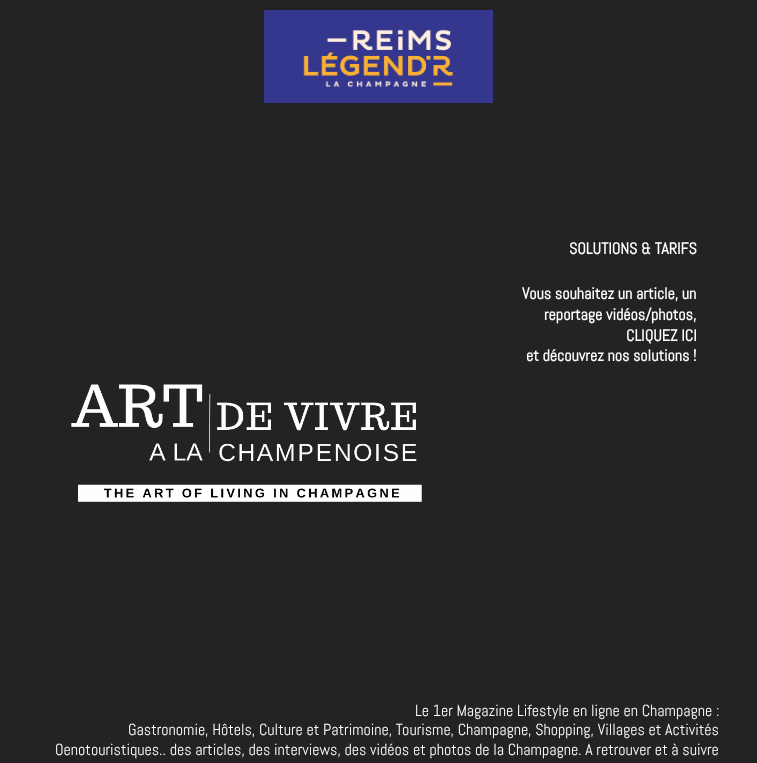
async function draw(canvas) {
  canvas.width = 757
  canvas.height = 763
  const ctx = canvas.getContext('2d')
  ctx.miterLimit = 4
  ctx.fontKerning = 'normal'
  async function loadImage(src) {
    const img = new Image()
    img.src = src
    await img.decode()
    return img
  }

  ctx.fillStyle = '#232323'
  ctx.fillRect(0, 0, 757, 763)
  ctx.drawImage(await loadImage('image0.png'), 264, 10, 229, 93)
  ctx.font = 'bold 16px Abel'
  ctx.fillStyle = '#fff'
  ctx.fillText('SOLUTIONS & TARIFS', 569, 254)
  ctx.fillText('Vous souhaitez un article, un', 522, 299)
  ctx.fillText('reportage vidéos/photos,', 544, 320)
  ctx.fillText('CLIQUEZ ICI', 626, 341)
  ctx.fillText('et découvrez nos solutions !', 526, 361)
  ctx.drawImage(await loadImage('image1.png'), 71, 384, 351, 118)
  ctx.font = '16px Abel'
  ctx.fillText('Le 1er Magazine Lifestyle en ligne en Champagne :', 415, 716)
  ctx.fillText('Gastronomie, Hôtels, Culture et Patrimoine, Tourisme, Champagne, Shopping, Villages et Activités', 128, 735)
  ctx.fillText('Oenotouristiques.. des articles, des interviews, des vidéos et photos de la Champagne. A retrouver et à suivre', 55, 755)
}

draw(document.querySelector('canvas'))
